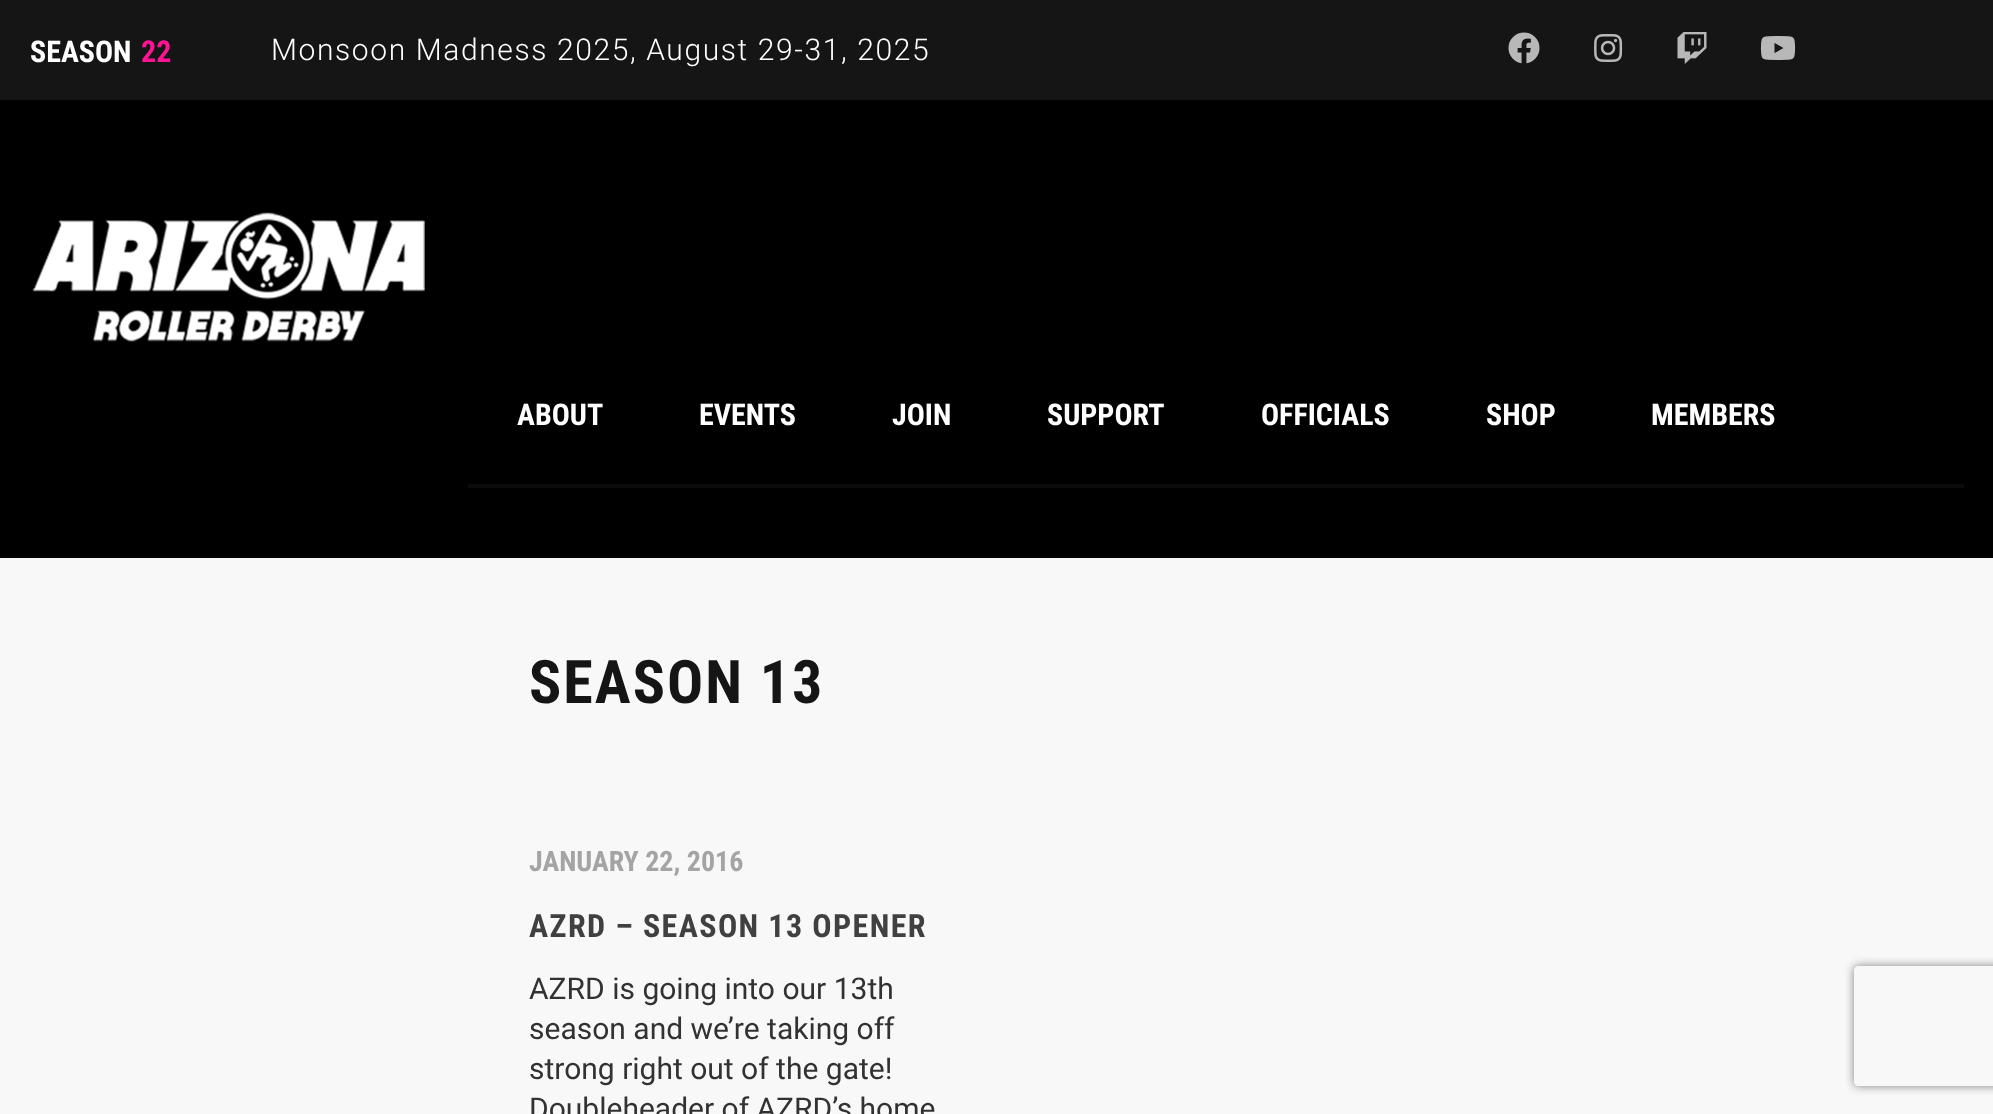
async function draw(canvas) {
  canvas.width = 1993
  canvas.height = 1114
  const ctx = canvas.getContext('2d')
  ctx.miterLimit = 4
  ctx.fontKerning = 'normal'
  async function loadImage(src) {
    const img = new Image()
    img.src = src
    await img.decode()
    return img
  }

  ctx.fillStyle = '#f8f8f8'
  ctx.fillRect(0, 0, 1993, 1114)
  ctx.fillStyle = '#151515'
  ctx.fillRect(0, 0, 1993, 100)
  ctx.font = 'bold 30px Roboto Condensed'
  ctx.fillStyle = '#fff'
  ctx.fillText('SEASON', 30, 62)
  ctx.fillStyle = '#ff1493'
  ctx.fillText('22', 141, 62)
  ctx.letterSpacing = '1.6px'
  ctx.font = '300 30px Roboto'
  ctx.fillStyle = '#fff'
  ctx.fillText('Monsoon Madness 2025, August 29-31, 2025', 271, 60)
  ctx.drawImage(await loadImage('image0.png'), 1508, 32, 32, 32)
  ctx.drawImage(await loadImage('image1.png'), 1594, 34, 29, 28)
  ctx.drawImage(await loadImage('image2.png'), 1677, 32, 30, 32)
  ctx.drawImage(await loadImage('image3.png'), 1760, 36, 36, 24)
  ctx.fillStyle = '#000'
  ctx.fillRect(0, 100, 1993, 458)
  ctx.drawImage(await loadImage('image4.png'), 32, 212, 393, 130)
  ctx.letterSpacing = '0px'
  ctx.font = 'bold 30px Roboto Condensed'
  ctx.fillStyle = '#fff'
  ctx.fillText('ABOUT', 517, 425)
  ctx.fillText('EVENTS', 699, 425)
  ctx.fillText('JOIN', 892, 425)
  ctx.fillText('SUPPORT', 1047, 425)
  ctx.fillText('OFFICIALS', 1261, 425)
  ctx.fillText('SHOP', 1486, 425)
  ctx.fillText('MEMBERS', 1651, 425)
  ctx.fillStyle = '#0b0b0b'
  ctx.fillRect(468, 484, 1496, 4)
  ctx.letterSpacing = '2px'
  ctx.font = 'bold 60px Roboto Condensed'
  ctx.fillStyle = '#151515'
  ctx.fillText('SEASON 13', 529, 703)
  ctx.letterSpacing = '0px'
  ctx.font = 'bold 28px Roboto Condensed'
  ctx.fillStyle = '#a4a4a4'
  ctx.fillText('JANUARY 22, 2016', 529, 871)
  ctx.letterSpacing = '1.4px'
  ctx.font = 'bold 32px Roboto Condensed'
  ctx.fillStyle = '#404040'
  ctx.fillText('AZRD – SEASON 13 OPENER', 529, 937)
  ctx.letterSpacing = '0px'
  ctx.font = '30px Roboto'
  ctx.fillStyle = '#323232'
  ctx.fillText('AZRD is going into our 13th', 529, 999)
  ctx.fillText('season and we’re taking off', 529, 1039)
  ctx.fillText('strong right out of the gate!', 529, 1079)
  ctx.fillText('Doubleheader of AZRD’s home', 529, 1119)
  ctx.save()
  ctx.beginPath()
  ctx.moveTo(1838, 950)
  ctx.lineTo(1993, 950)
  ctx.lineTo(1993, 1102)
  ctx.lineTo(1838, 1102)
  ctx.closePath()
  ctx.moveTo(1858, 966)
  ctx.lineTo(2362, 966)
  ctx.bezierCurveTo(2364, 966, 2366, 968, 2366, 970)
  ctx.lineTo(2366, 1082)
  ctx.bezierCurveTo(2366, 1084, 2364, 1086, 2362, 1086)
  ctx.lineTo(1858, 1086)
  ctx.bezierCurveTo(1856, 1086, 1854, 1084, 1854, 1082)
  ctx.lineTo(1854, 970)
  ctx.bezierCurveTo(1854, 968, 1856, 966, 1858, 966)
  ctx.closePath()
  ctx.clip('evenodd')
  ctx.fillStyle = '#808080'
  ctx.filter = 'blur(5px)'
  ctx.beginPath()
  ctx.roundRect(1854, 966, 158, 120, 4)
  ctx.fill()
  ctx.filter = 'none'
  ctx.restore()
}

draw(document.querySelector('canvas'))
